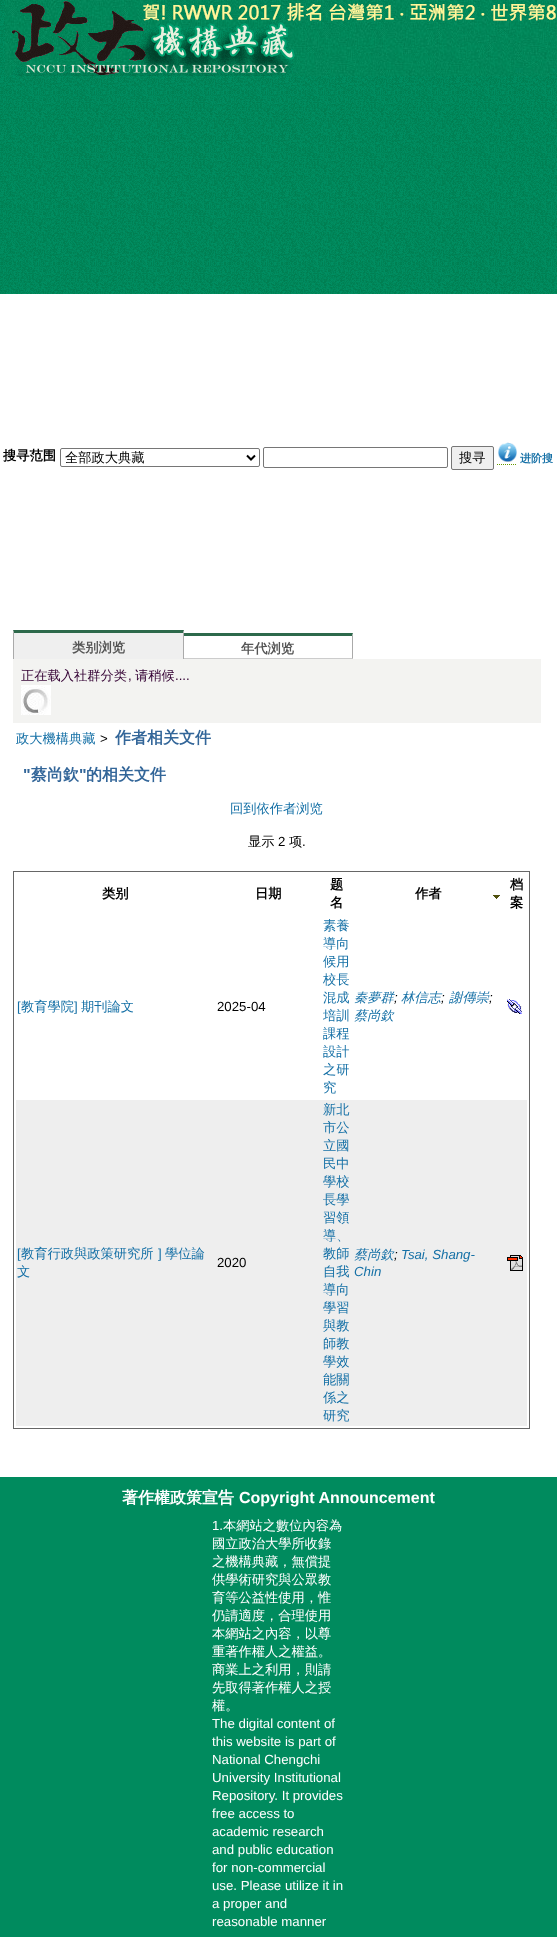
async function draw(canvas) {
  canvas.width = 557
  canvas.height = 1937
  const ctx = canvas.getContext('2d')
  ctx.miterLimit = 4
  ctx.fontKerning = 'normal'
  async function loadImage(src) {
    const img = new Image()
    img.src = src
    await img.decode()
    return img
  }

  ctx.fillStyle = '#fff'
  ctx.fillRect(0, 0, 557, 1937)
  ctx.drawImage(await loadImage('image0.png'), 0, 0, 557, 294)
  ctx.drawImage(await loadImage('image1.png'), 5, 0, 552, 76)
  ctx.font = 'bold 13.25px WenQuanYi Zen Hei'
  ctx.fillStyle = '#000'
  ctx.fillText('搜寻范围', 3, 460)
  ctx.beginPath()
  ctx.roundRect(60.5, 448.5, 199, 18, 1.5)
  ctx.strokeStyle = '#767676'
  ctx.stroke()
  ctx.beginPath()
  ctx.moveTo(247, 455.5)
  ctx.lineTo(251, 459.5)
  ctx.lineTo(255, 455.5)
  ctx.strokeStyle = '#000'
  ctx.lineWidth = 2
  ctx.stroke()
  ctx.font = '500 13.25px WenQuanYi Zen Hei'
  ctx.fillText('全部政大典藏', 65, 462)
  ctx.beginPath()
  ctx.roundRect(263.5, 447.5, 184, 20, 1.5)
  ctx.strokeStyle = '#767676'
  ctx.lineWidth = 1
  ctx.stroke()
  ctx.fillStyle = '#efefef'
  ctx.beginPath()
  ctx.roundRect(451.5, 446.5, 42, 23, 1.5)
  ctx.fill()
  ctx.stroke()
  ctx.fillStyle = '#000'
  ctx.fillText('搜寻', 459, 462)
  ctx.drawImage(await loadImage('image2.png'), 498, 442, 19, 20)
  ctx.font = 'bold 11px WenQuanYi Zen Hei'
  ctx.fillStyle = '#1570a6'
  ctx.fillText('进阶搜', 520, 462)
  ctx.beginPath()
  ctx.moveTo(497, 464.5)
  ctx.lineTo(517, 464.5)
  ctx.strokeStyle = '#690'
  ctx.setLineDash([1, 1])
  ctx.stroke()
  ctx.fillStyle = '#efefef'
  ctx.fillRect(14, 633, 169, 26)
  ctx.fillStyle = '#2d694b'
  ctx.beginPath()
  ctx.moveTo(13, 630)
  ctx.lineTo(184, 630)
  ctx.lineTo(183, 633)
  ctx.lineTo(14, 633)
  ctx.closePath()
  ctx.fill()
  ctx.beginPath()
  ctx.moveTo(183, 633)
  ctx.lineTo(353, 633)
  ctx.lineTo(352, 636)
  ctx.lineTo(183, 636)
  ctx.closePath()
  ctx.fill()
  ctx.fillStyle = '#aaa'
  ctx.beginPath()
  ctx.moveTo(353, 633)
  ctx.lineTo(353, 660)
  ctx.lineTo(352, 658)
  ctx.lineTo(352, 636)
  ctx.closePath()
  ctx.fill()
  ctx.fillStyle = '#ccc'
  ctx.beginPath()
  ctx.moveTo(353, 660)
  ctx.lineTo(183, 660)
  ctx.lineTo(183, 658)
  ctx.lineTo(352, 658)
  ctx.closePath()
  ctx.fill()
  ctx.fillStyle = '#aaa'
  ctx.beginPath()
  ctx.moveTo(184, 630)
  ctx.lineTo(184, 659)
  ctx.lineTo(183, 659)
  ctx.lineTo(183, 633)
  ctx.closePath()
  ctx.fill()
  ctx.beginPath()
  ctx.moveTo(13, 659)
  ctx.lineTo(13, 630)
  ctx.lineTo(14, 633)
  ctx.lineTo(14, 659)
  ctx.closePath()
  ctx.fill()
  ctx.font = 'bold 13.25px WenQuanYi Zen Hei'
  ctx.fillStyle = '#555'
  ctx.fillText('类别浏览', 72, 652)
  ctx.fillText('年代浏览', 241, 653)
  ctx.fillStyle = '#f3f3f1'
  ctx.fillRect(13, 659, 528, 64)
  ctx.font = '500 13.25px WenQuanYi Zen Hei'
  ctx.fillStyle = '#303'
  ctx.fillText('正在载入社群分类', 21, 680)
  ctx.font = '13.25px Liberation Sans'
  ctx.fillText(',', 128, 680)
  ctx.font = '500 13.25px WenQuanYi Zen Hei'
  ctx.fillText('请稍候', 135, 680)
  ctx.font = '13.25px Liberation Sans'
  ctx.fillText('....', 175, 680)
  ctx.drawImage(await loadImage('image3.png'), 21, 685, 30, 30)
  ctx.font = '500 13.25px WenQuanYi Zen Hei'
  ctx.fillStyle = '#1570a6'
  ctx.fillText('政大機構典藏', 16, 743)
  ctx.font = '13.25px Liberation Sans'
  ctx.fillStyle = '#000'
  ctx.fillText('>', 100, 743)
  ctx.font = 'bold 16px WenQuanYi Zen Hei'
  ctx.fillStyle = '#369'
  ctx.fillText('作者相关文件', 115, 743)
  ctx.font = 'bold 16px Liberation Sans'
  ctx.fillText('"', 23, 780)
  ctx.font = 'bold 16px WenQuanYi Zen Hei'
  ctx.fillText('蔡尚欽', 31, 780)
  ctx.font = 'bold 16px Liberation Sans'
  ctx.fillText('"', 79, 780)
  ctx.font = 'bold 16px WenQuanYi Zen Hei'
  ctx.fillText('的相关文件', 86, 780)
  ctx.font = '500 13.25px WenQuanYi Zen Hei'
  ctx.fillStyle = '#1570a6'
  ctx.fillText('回到依作者浏览', 230, 813)
  ctx.fillStyle = '#000'
  ctx.fillText('显示', 248, 846)
  ctx.font = '13.25px Liberation Sans'
  ctx.fillText('2', 278, 846)
  ctx.font = '500 13.25px WenQuanYi Zen Hei'
  ctx.fillText('项', 289, 846)
  ctx.font = '13.25px Liberation Sans'
  ctx.fillText('.', 302, 846)
  ctx.strokeStyle = '#666'
  ctx.setLineDash([])
  ctx.strokeRect(13.5, 871.5, 516, 557)
  ctx.font = 'bold 13.25px WenQuanYi Zen Hei'
  ctx.fillText('类别', 102, 898)
  ctx.fillText('日期', 255, 898)
  ctx.fillText('题', 330, 889)
  ctx.fillText('名', 330, 907)
  ctx.drawImage(await loadImage('image4.png'), 493, 895, 7, 4)
  ctx.fillText('作者', 415, 898)
  ctx.fillText('档', 510, 889)
  ctx.fillText('案', 510, 907)
  ctx.font = '13.25px Liberation Sans'
  ctx.fillStyle = '#1570a6'
  ctx.fillText('[', 17, 1011)
  ctx.font = '500 13.25px WenQuanYi Zen Hei'
  ctx.fillText('教育學院', 21, 1011)
  ctx.font = '13.25px Liberation Sans'
  ctx.fillText(']', 74, 1011)
  ctx.font = '500 13.25px WenQuanYi Zen Hei'
  ctx.fillText('期刊論文', 81, 1011)
  ctx.font = '13.25px Liberation Sans'
  ctx.fillStyle = '#000'
  ctx.fillText('2025-04', 217, 1011)
  ctx.font = '500 13.25px WenQuanYi Zen Hei'
  ctx.fillStyle = '#1570a6'
  ctx.fillText('素養', 323, 930)
  ctx.fillText('導向', 323, 948)
  ctx.fillText('候用', 323, 966)
  ctx.fillText('校長', 323, 984)
  ctx.fillText('混成', 323, 1002)
  ctx.fillText('培訓', 323, 1020)
  ctx.fillText('課程', 323, 1038)
  ctx.fillText('設計', 323, 1056)
  ctx.fillText('之研', 323, 1074)
  ctx.fillText('究', 323, 1092)
  ctx.font = 'italic 500 13.25px WenQuanYi Zen Hei'
  ctx.fillText('秦夢群', 354, 1002)
  ctx.font = 'italic 13.25px Liberation Sans'
  ctx.fillStyle = '#000'
  ctx.fillText(';', 394, 1002)
  ctx.font = 'italic 500 13.25px WenQuanYi Zen Hei'
  ctx.fillStyle = '#1570a6'
  ctx.fillText('林信志', 401, 1002)
  ctx.fillText('謝傳崇', 449, 1002)
  ctx.font = 'italic 13.25px Liberation Sans'
  ctx.fillStyle = '#000'
  ctx.fillText(';', 441, 1002)
  ctx.fillText(';', 489, 1002)
  ctx.font = 'italic 500 13.25px WenQuanYi Zen Hei'
  ctx.fillStyle = '#1570a6'
  ctx.fillText('蔡尚欽', 354, 1020)
  ctx.drawImage(await loadImage('image5.png'), 507, 999, 15, 15)
  ctx.fillStyle = '#eee'
  ctx.fillRect(16, 1100, 511, 326)
  ctx.font = '13.25px Liberation Sans'
  ctx.fillStyle = '#1570a6'
  ctx.fillText('[', 17, 1258)
  ctx.font = '500 13.25px WenQuanYi Zen Hei'
  ctx.fillText('教育行政與政策研究所', 21, 1258)
  ctx.font = '13.25px Liberation Sans'
  ctx.fillText(']', 158, 1258)
  ctx.font = '500 13.25px WenQuanYi Zen Hei'
  ctx.fillText('學位論', 165, 1258)
  ctx.fillText('文', 17, 1276)
  ctx.font = '13.25px Liberation Sans'
  ctx.fillStyle = '#000'
  ctx.fillText('2020', 217, 1267)
  ctx.font = '500 13.25px WenQuanYi Zen Hei'
  ctx.fillStyle = '#1570a6'
  ctx.fillText('新北', 323, 1114)
  ctx.fillText('市公', 323, 1132)
  ctx.fillText('立國', 323, 1150)
  ctx.fillText('民中', 323, 1168)
  ctx.fillText('學校', 323, 1186)
  ctx.fillText('長學', 323, 1204)
  ctx.fillText('習領', 323, 1222)
  ctx.fillText('導、', 323, 1240)
  ctx.fillText('教師', 323, 1258)
  ctx.fillText('自我', 323, 1276)
  ctx.fillText('導向', 323, 1294)
  ctx.fillText('學習', 323, 1312)
  ctx.fillText('與教', 323, 1330)
  ctx.fillText('師教', 323, 1348)
  ctx.fillText('學效', 323, 1366)
  ctx.fillText('能關', 323, 1384)
  ctx.fillText('係之', 323, 1402)
  ctx.fillText('研究', 323, 1420)
  ctx.font = 'italic 500 13.25px WenQuanYi Zen Hei'
  ctx.fillText('蔡尚欽', 354, 1259)
  ctx.font = 'italic 13.25px Liberation Sans'
  ctx.fillStyle = '#000'
  ctx.fillText(';', 394, 1259)
  ctx.fillStyle = '#1570a6'
  ctx.fillText('Tsai, Shang-', 401, 1259)
  ctx.fillText('Chin', 354, 1276)
  ctx.drawImage(await loadImage('image6.png'), 507, 1255, 16, 16)
  ctx.fillStyle = '#008b5e'
  ctx.fillRect(0, 1477, 557, 460)
  ctx.font = 'bold 16px WenQuanYi Zen Hei'
  ctx.fillStyle = '#fff'
  ctx.fillText('著作權政策宣告', 122, 1503)
  ctx.font = 'bold 16px Liberation Sans'
  ctx.fillText('Copyright Announcement', 239, 1503)
  ctx.font = '13.25px Liberation Sans'
  ctx.fillText('1.', 212, 1530)
  ctx.font = '500 13.25px WenQuanYi Zen Hei'
  ctx.fillText('本網站之數位內容為', 223, 1530)
  ctx.fillText('國立政治大學所收錄', 212, 1548)
  ctx.fillText('之機構典藏，無償提', 212, 1566)
  ctx.fillText('供學術研究與公眾教', 212, 1584)
  ctx.fillText('育等公益性使用，惟', 212, 1602)
  ctx.fillText('仍請適度，合理使用', 212, 1620)
  ctx.fillText('本網站之內容，以尊', 212, 1638)
  ctx.fillText('重著作權人之權益。', 212, 1656)
  ctx.fillText('商業上之利用，則請', 212, 1674)
  ctx.fillText('先取得著作權人之授', 212, 1692)
  ctx.fillText('權。', 212, 1710)
  ctx.font = '13.25px Liberation Sans'
  ctx.fillText('The digital content of', 212, 1728)
  ctx.fillText('this website is part of', 212, 1746)
  ctx.fillText('National Chengchi', 212, 1764)
  ctx.fillText('University Institutional', 212, 1782)
  ctx.fillText('Repository. It provides', 212, 1800)
  ctx.fillText('free access to', 212, 1818)
  ctx.fillText('academic research', 212, 1836)
  ctx.fillText('and public education', 212, 1854)
  ctx.fillText('for non-commercial', 212, 1872)
  ctx.fillText('use. Please utilize it in', 212, 1890)
  ctx.fillText('a proper and', 212, 1908)
  ctx.fillText('reasonable manner', 212, 1926)
}

draw(document.querySelector('canvas'))
